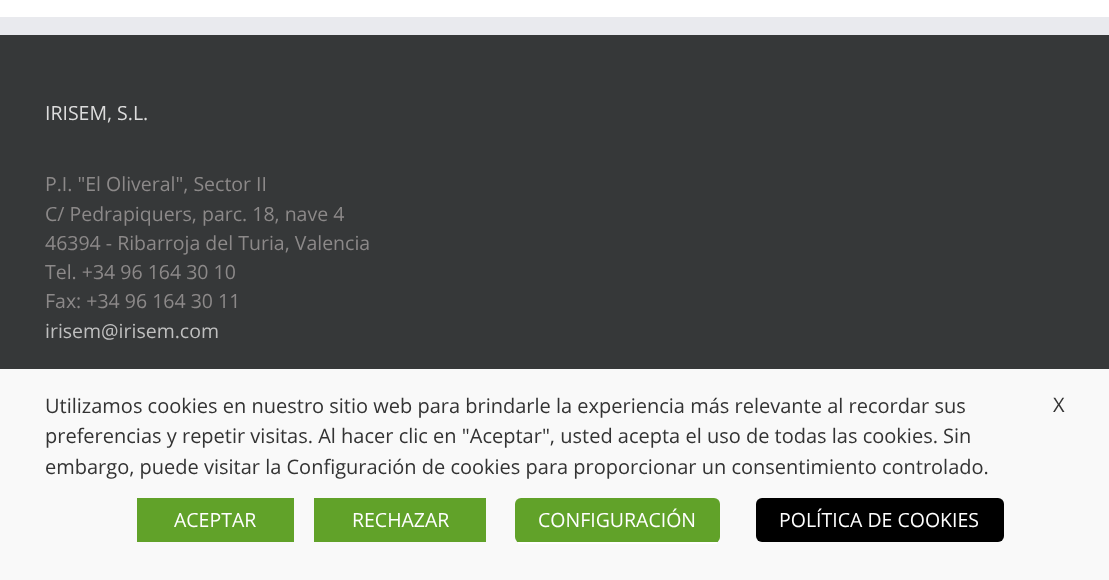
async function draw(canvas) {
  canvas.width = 1109
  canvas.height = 580
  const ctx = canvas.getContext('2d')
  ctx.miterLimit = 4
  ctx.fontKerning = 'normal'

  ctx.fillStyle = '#fff'
  ctx.fillRect(0, 0, 1109, 580)
  ctx.fillStyle = '#363839'
  ctx.fillRect(0, 35, 1109, 334)
  ctx.fillStyle = '#f9f9f9'
  ctx.fillRect(0, 369, 1109, 211)
  ctx.fillStyle = '#e9eaee'
  ctx.fillRect(0, 17, 1109, 18)
  ctx.font = '19.5px Open Sans'
  ctx.fillStyle = '#ddd'
  ctx.fillText('IRISEM, S.L.', 45, 120)
  ctx.fillStyle = '#8c8989'
  ctx.fillText('P.I. "El Oliveral", Sector II', 45, 191)
  ctx.fillText('C/ Pedrapiquers, parc. 18, nave 4', 45, 221)
  ctx.fillText('46394 - Ribarroja del Turia, Valencia', 45, 250)
  ctx.fillText('Tel. +34 96 164 30 10', 45, 279)
  ctx.fillText('Fax: +34 96 164 30 11', 45, 308)
  ctx.fillStyle = '#bfbfbf'
  ctx.fillText('irisem@irisem.com', 45, 338)
  ctx.font = '20px Open Sans'
  ctx.fillStyle = '#333'
  ctx.fillText('Utilizamos cookies en nuestro sitio web para brindarle la experiencia más relevante al recordar sus', 45, 413)
  ctx.fillText('preferencias y repetir visitas. Al hacer clic en "Aceptar", usted acepta el uso de todas las cookies. Sin', 45, 443)
  ctx.fillText('embargo, puede visitar la Configuración de cookies para proporcionar un consentimiento controlado.', 45, 474)
  ctx.fillStyle = '#61a229'
  ctx.fillRect(137, 498, 157, 44)
  ctx.font = '19.5px Open Sans'
  ctx.fillStyle = '#fff'
  ctx.fillText('ACEPTAR', 174, 527)
  ctx.fillStyle = '#61a229'
  ctx.fillRect(314, 498, 172, 44)
  ctx.fillStyle = '#fff'
  ctx.fillText('RECHAZAR', 352, 527)
  ctx.fillStyle = '#61a229'
  ctx.beginPath()
  ctx.roundRect(515, 498, 205, 45, 6)
  ctx.fill()
  ctx.fillStyle = '#fff'
  ctx.fillRect(518, 542, 199, 2)
  ctx.fillText('CONFIGURACIÓN', 538, 527)
  ctx.fillStyle = '#000'
  ctx.beginPath()
  ctx.roundRect(756, 498, 248, 44, 6)
  ctx.fill()
  ctx.fillStyle = '#fff'
  ctx.fillText('POLÍTICA DE COOKIES', 779, 527)
  ctx.font = '20px Open Sans'
  ctx.fillStyle = '#333'
  ctx.fillText('X', 1053, 412)
}

draw(document.querySelector('canvas'))
